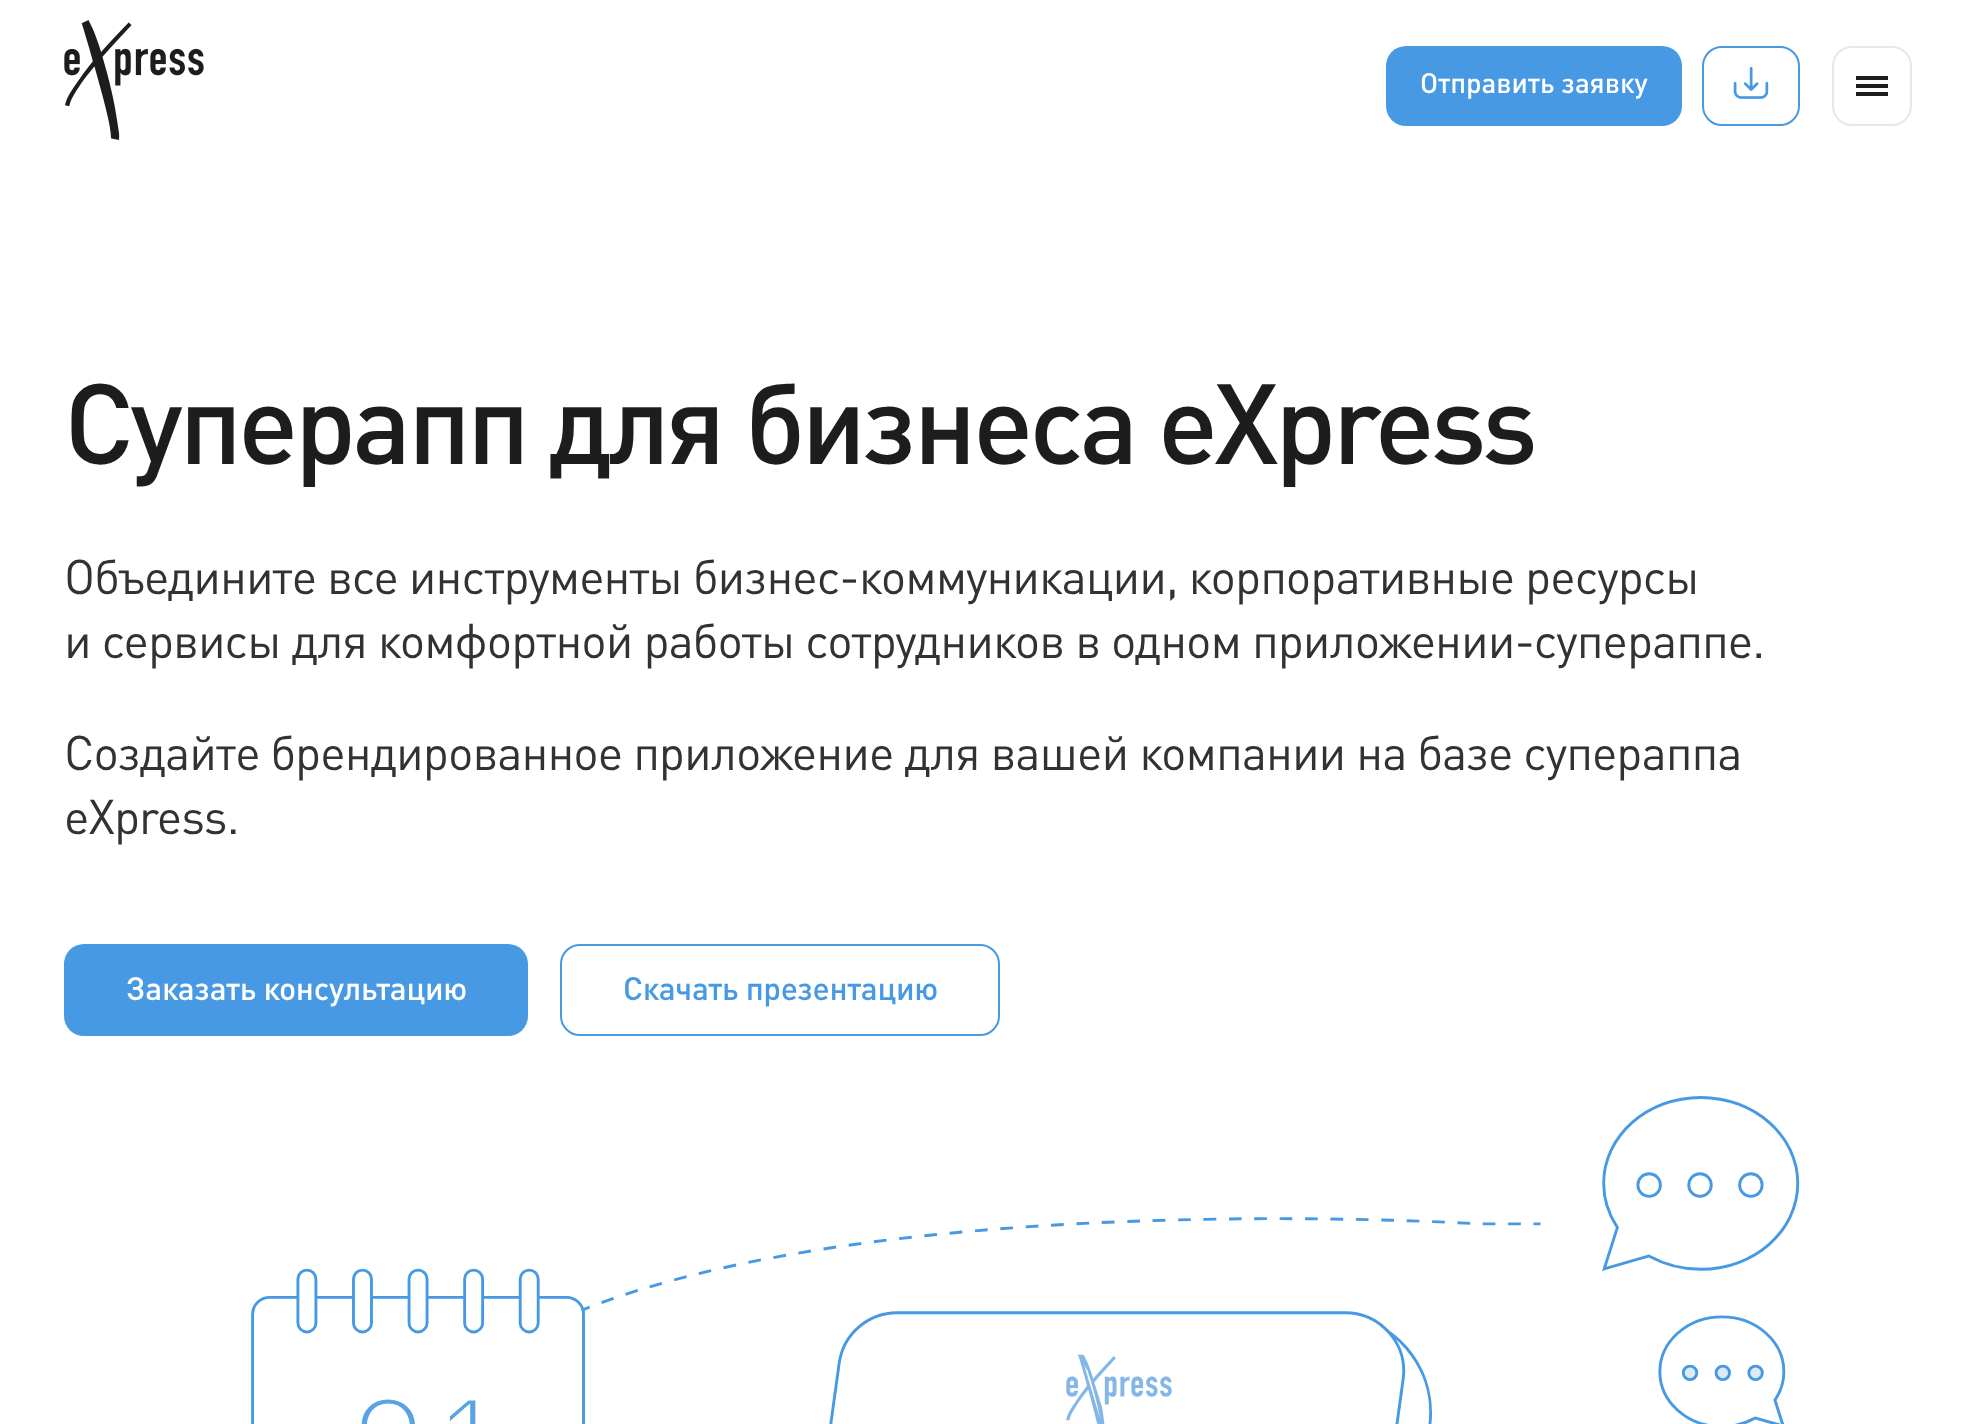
async function draw(canvas) {
  canvas.width = 1976
  canvas.height = 1424
  const ctx = canvas.getContext('2d')
  ctx.miterLimit = 4
  ctx.fontKerning = 'normal'
  async function loadImage(src) {
    const img = new Image()
    img.src = src
    await img.decode()
    return img
  }

  ctx.fillStyle = '#fff'
  ctx.fillRect(0, 0, 1976, 1424)
  ctx.drawImage(await loadImage('image0.png'), 64, 20, 140, 120)
  ctx.fillStyle = '#4799e3'
  ctx.beginPath()
  ctx.roundRect(1386, 46, 296, 80, 20)
  ctx.fill()
  ctx.font = '500 28px DIN'
  ctx.fillStyle = '#fff'
  ctx.fillText('Отправить заявку', 1420, 93)
  ctx.beginPath()
  ctx.roundRect(1703, 47, 96, 78, 19)
  ctx.strokeStyle = '#4799e3'
  ctx.lineWidth = 2
  ctx.stroke()
  ctx.drawImage(await loadImage('image1.png'), 1733, 66, 36, 33)
  ctx.beginPath()
  ctx.roundRect(1833, 47, 78, 78, 19)
  ctx.strokeStyle = '#e8e7ed'
  ctx.stroke()
  ctx.fillStyle = '#1d1d1f'
  ctx.fillRect(1856, 76, 32, 4)
  ctx.fillRect(1856, 84, 32, 4)
  ctx.fillRect(1856, 92, 32, 4)
  ctx.letterSpacing = '-4px'
  ctx.font = '500 112px DIN'
  ctx.fillText('Суперапп для бизнеса eXpress', 64, 464)
  ctx.letterSpacing = '-1px'
  ctx.font = '48px DIN'
  ctx.fillStyle = '#323233'
  ctx.fillText('Объедините все инструменты бизнес-коммуникации, корпоративные ресурсы', 64, 594)
  ctx.fillText('и сервисы для комфортной работы сотрудников в одном приложении-супераппе.', 64, 658)
  ctx.fillText('Создайте брендированное приложение для вашей компании на базе супераппа', 64, 770)
  ctx.fillText('eXpress.', 64, 834)
  ctx.fillStyle = '#4799e3'
  ctx.beginPath()
  ctx.roundRect(64, 944, 464, 92, 20)
  ctx.fill()
  ctx.letterSpacing = '-0.3px'
  ctx.font = '500 32px DIN'
  ctx.fillStyle = '#fff'
  ctx.fillText('Заказать консультацию', 126, 1000)
  ctx.beginPath()
  ctx.roundRect(561, 945, 438, 90, 19)
  ctx.strokeStyle = '#4799e3'
  ctx.stroke()
  ctx.fillStyle = '#4799e3'
  ctx.fillText('Скачать презентацию', 623, 1000)
  ctx.drawImage(await loadImage('image2.png'), 251, 1096, 1549, 328)
}

draw(document.querySelector('canvas'))
